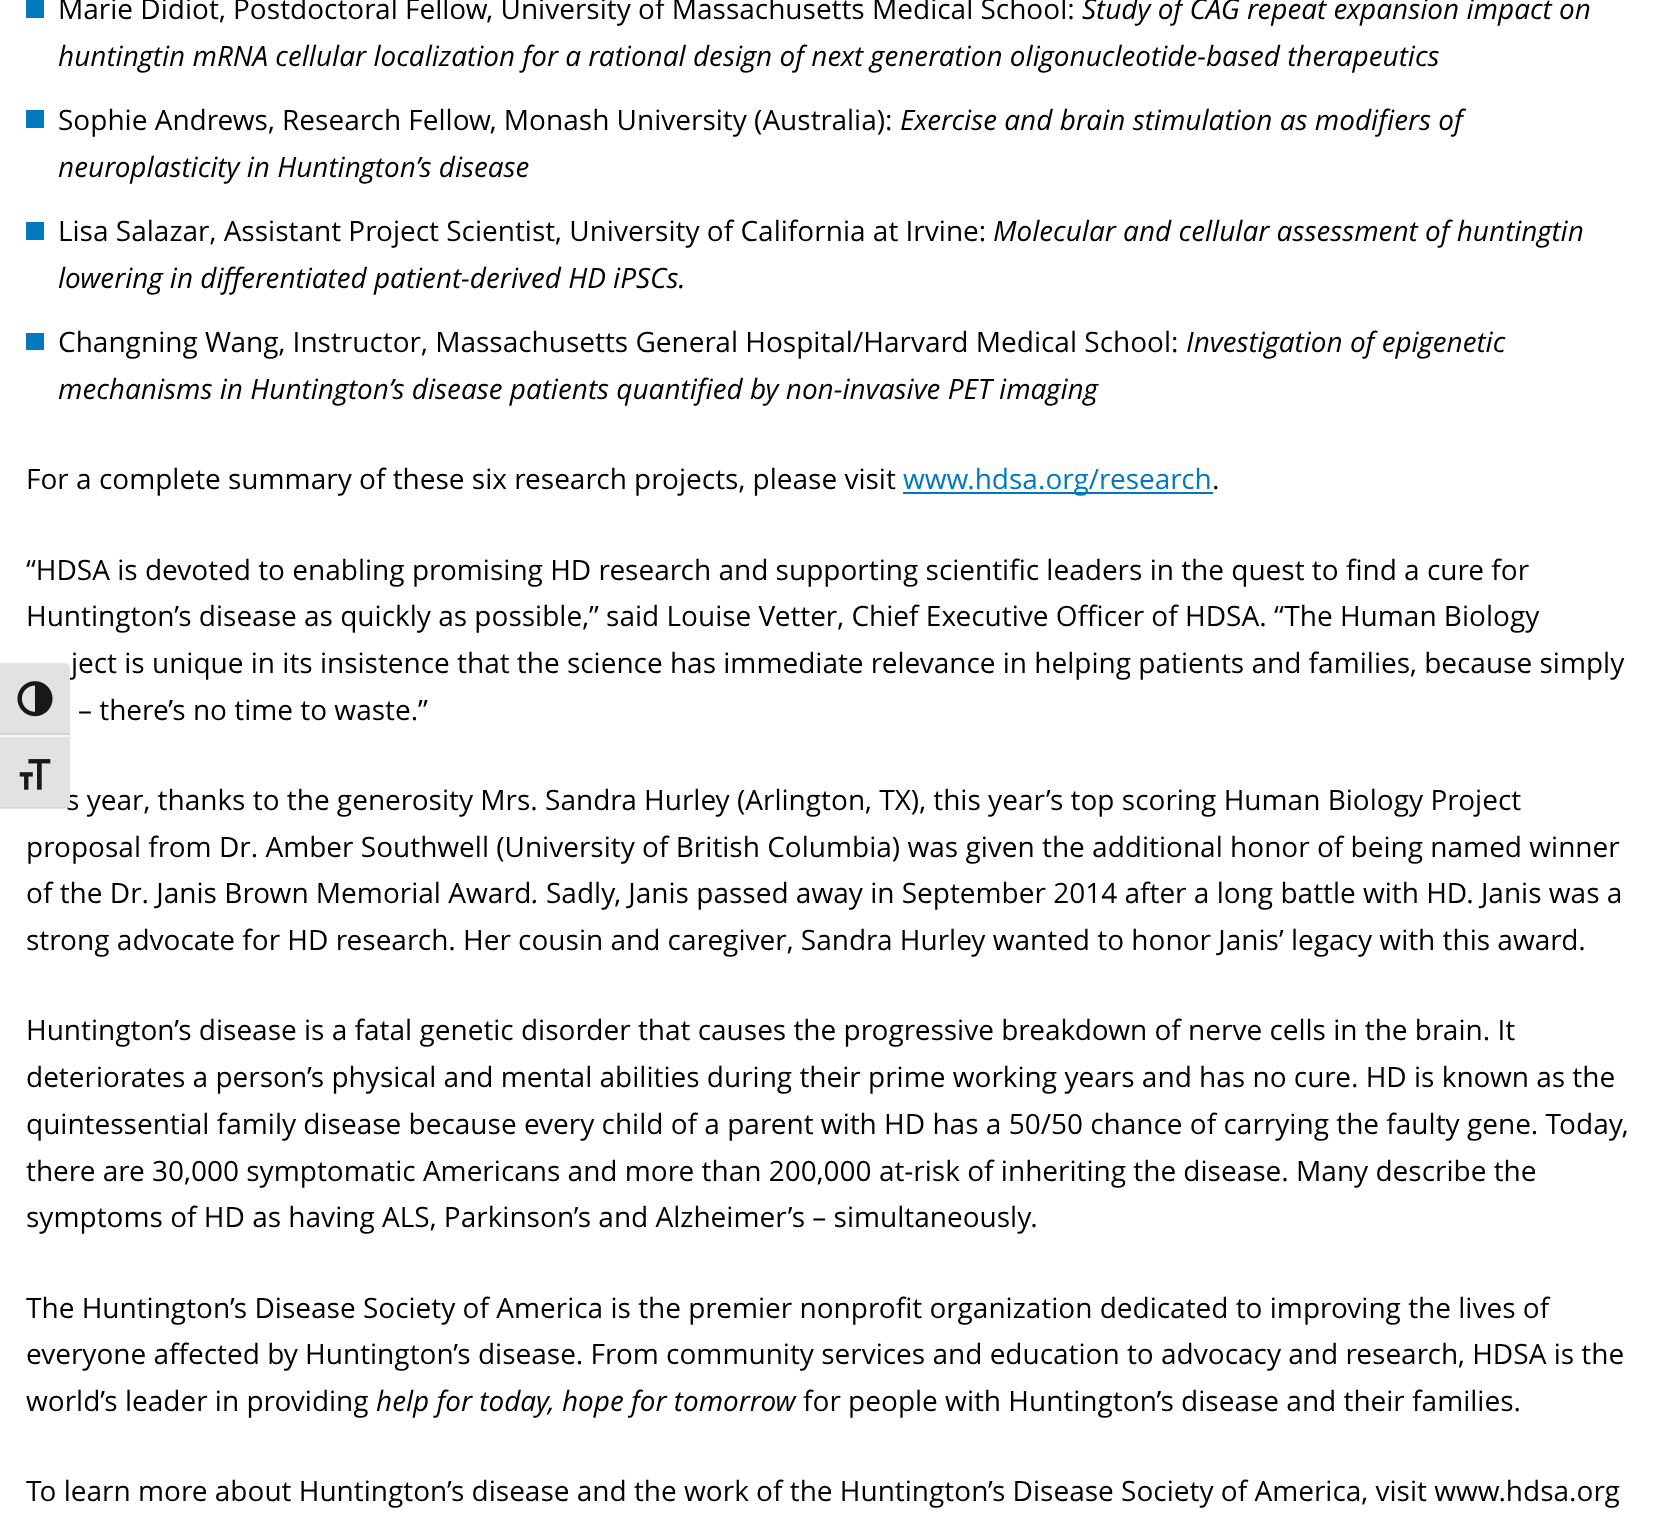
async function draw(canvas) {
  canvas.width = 1657
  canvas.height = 1536
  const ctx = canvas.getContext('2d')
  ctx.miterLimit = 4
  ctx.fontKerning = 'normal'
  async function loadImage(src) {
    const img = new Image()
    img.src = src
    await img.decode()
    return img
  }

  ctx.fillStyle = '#fff'
  ctx.fillRect(0, 0, 1657, 1536)
  ctx.fillStyle = '#0079bf'
  ctx.fillRect(26, 0, 18, 18)
  ctx.font = '28px Open Sans'
  ctx.fillStyle = '#000'
  ctx.fillText('Marie Didiot, Postdoctoral Fellow, University of Massachusetts Medical School:', 58, 19)
  ctx.font = 'italic 28px Open Sans'
  ctx.fillText('Study of CAG repeat expansion impact on', 1082, 19)
  ctx.fillText('huntingtin mRNA cellular localization for a rational design of next generation oligonucleotide-based therapeutics', 58, 66)
  ctx.fillStyle = '#0079bf'
  ctx.fillRect(26, 110, 18, 18)
  ctx.font = '28px Open Sans'
  ctx.fillStyle = '#000'
  ctx.fillText('Sophie Andrews, Research Fellow, Monash University (Australia):', 58, 130)
  ctx.font = 'italic 28px Open Sans'
  ctx.fillText('Exercise and brain stimulation as modifiers of', 900, 130)
  ctx.fillText('neuroplasticity in Huntington’s disease', 58, 177)
  ctx.fillStyle = '#0079bf'
  ctx.fillRect(26, 222, 18, 18)
  ctx.font = '28px Open Sans'
  ctx.fillStyle = '#000'
  ctx.fillText('Lisa Salazar, Assistant Project Scientist, University of California at Irvine:', 58, 241)
  ctx.font = 'italic 28px Open Sans'
  ctx.fillText('Molecular and cellular assessment of huntingtin', 993, 241)
  ctx.fillText('lowering in differentiated patient-derived HD iPSCs.', 58, 288)
  ctx.fillStyle = '#0079bf'
  ctx.fillRect(26, 333, 18, 17)
  ctx.font = '28px Open Sans'
  ctx.fillStyle = '#000'
  ctx.fillText('Changning Wang, Instructor, Massachusetts General Hospital/Harvard Medical School:', 58, 352)
  ctx.font = 'italic 28px Open Sans'
  ctx.fillText('Investigation of epigenetic', 1186, 352)
  ctx.fillText('mechanisms in Huntington’s disease patients quantified by non-invasive PET imaging', 58, 399)
  ctx.font = '28px Open Sans'
  ctx.fillText('For a complete summary of these six research projects, please visit', 26, 489)
  ctx.fillStyle = '#0079bf'
  ctx.fillRect(903, 492, 310, 2)
  ctx.fillText('www.hdsa.org/research', 903, 489)
  ctx.fillStyle = '#000'
  ctx.fillText('.', 1212, 489)
  ctx.fillText('“HDSA is devoted to enabling promising HD research and supporting scientific leaders in the quest to find a cure for', 26, 580)
  ctx.fillText('Huntington’s disease as quickly as possible,” said Louise Vetter, Chief Executive Officer of HDSA. “The Human Biology', 26, 626)
  ctx.fillText('ject is unique in its insistence that the science has immediate relevance in helping patients and families, because simply', 71, 673)
  ctx.fillText('– there’s no time to waste.”', 78, 720)
  ctx.fillText('s year, thanks to the generosity Mrs. Sandra Hurley (Arlington, TX), this year’s top scoring Human Biology Project', 66, 810)
  ctx.fillText('proposal from Dr. Amber Southwell (University of British Columbia) was given the additional honor of being named winner', 26, 857)
  ctx.fillText('of the Dr. Janis Brown Memorial Award', 26, 903)
  ctx.font = 'italic 28px Open Sans'
  ctx.fillText('.', 532, 903)
  ctx.font = '28px Open Sans'
  ctx.fillText('Sadly, Janis passed away in September 2014 after a long battle with HD. Janis was a', 546, 903)
  ctx.fillText('strong advocate for HD research. Her cousin and caregiver, Sandra Hurley wanted to honor Janis’ legacy with this award.', 26, 950)
  ctx.fillText('Huntington’s disease is a fatal genetic disorder that causes the progressive breakdown of nerve cells in the brain. It', 26, 1040)
  ctx.fillText('deteriorates a person’s physical and mental abilities during their prime working years and has no cure. HD is known as the', 26, 1087)
  ctx.fillText('quintessential family disease because every child of a parent with HD has a 50/50 chance of carrying the faulty gene. Today,', 26, 1134)
  ctx.fillText('there are 30,000 symptomatic Americans and more than 200,000 at-risk of inheriting the disease. Many describe the', 26, 1181)
  ctx.fillText('symptoms of HD as having ALS, Parkinson’s and Alzheimer’s – simultaneously.', 26, 1227)
  ctx.fillText('The Huntington’s Disease Society of America is the premier nonprofit organization dedicated to improving the lives of', 26, 1318)
  ctx.fillText('everyone affected by Huntington’s disease. From community services and education to advocacy and research, HDSA is the', 26, 1364)
  ctx.fillText('world’s leader in providing', 26, 1411)
  ctx.font = 'italic 28px Open Sans'
  ctx.fillText('help for today, hope for tomorrow', 376, 1411)
  ctx.font = '28px Open Sans'
  ctx.fillText('for people with Huntington’s disease and their families.', 803, 1411)
  ctx.fillText('To learn more about Huntington’s disease and the work of the Huntington’s Disease Society of America, visit www.hdsa.org', 26, 1501)
  ctx.fillStyle = '#e2e2e2'
  ctx.beginPath()
  ctx.roundRect(0, 662, 70, 73, [0, 7, 0, 0])
  ctx.fill()
  ctx.fillStyle = '#f5f5f5'
  ctx.beginPath()
  ctx.moveTo(0, 663)
  ctx.lineTo(63, 663)
  ctx.bezierCurveTo(67, 663, 70, 666, 70, 668)
  ctx.bezierCurveTo(70, 665, 67, 662, 63, 662)
  ctx.lineTo(0, 662)
  ctx.closePath()
  ctx.fill()
  ctx.fillStyle = '#d2d2d2'
  ctx.fillRect(0, 733, 70, 2)
  ctx.drawImage(await loadImage('image0.png'), 17, 681, 36, 36)
  ctx.fillStyle = '#e2e2e2'
  ctx.beginPath()
  ctx.roundRect(0, 735, 70, 74, [0, 0, 7, 0])
  ctx.fill()
  ctx.fillStyle = '#f5f5f5'
  ctx.fillRect(0, 735, 70, 2)
  ctx.fillStyle = '#d2d2d2'
  ctx.beginPath()
  ctx.moveTo(0, 807)
  ctx.lineTo(0, 808)
  ctx.lineTo(63, 808)
  ctx.bezierCurveTo(67, 808, 70, 805, 70, 802)
  ctx.bezierCurveTo(70, 804, 67, 807, 63, 807)
  ctx.closePath()
  ctx.fill()
  ctx.drawImage(await loadImage('image1.png'), 19, 759, 32, 31)
}

draw(document.querySelector('canvas'))
